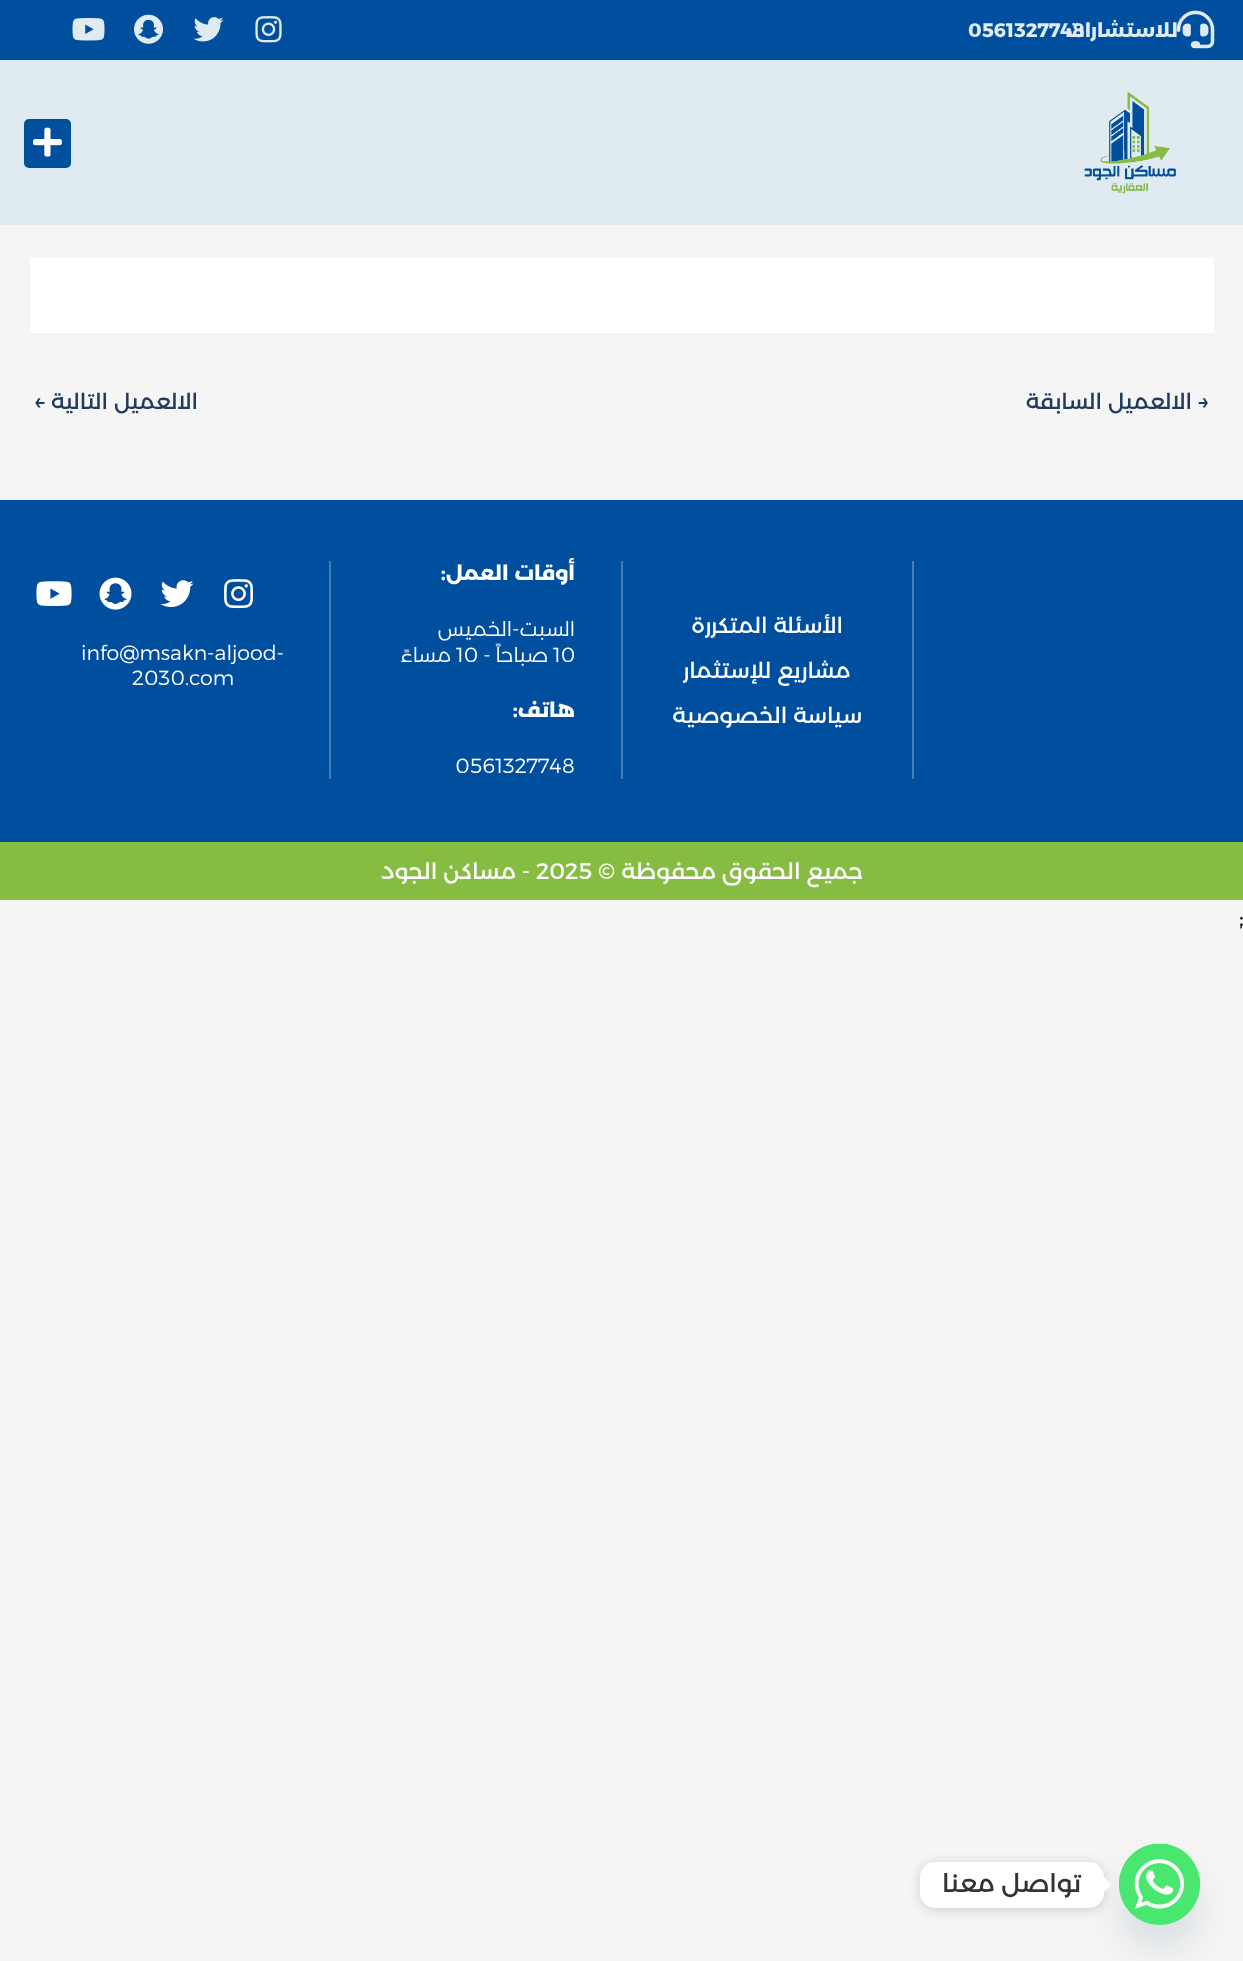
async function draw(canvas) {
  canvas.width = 1243
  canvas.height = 1961
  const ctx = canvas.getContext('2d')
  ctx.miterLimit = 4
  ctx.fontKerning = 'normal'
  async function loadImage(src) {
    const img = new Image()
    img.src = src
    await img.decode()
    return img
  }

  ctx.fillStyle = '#f5f5f5'
  ctx.fillRect(0, 0, 1243, 1961)
  ctx.fillStyle = '#004f9e'
  ctx.fillRect(0, 0, 1243, 60)
  ctx.drawImage(await loadImage('image0.png'), 1176, 10, 39, 39)
  ctx.direction = 'rtl'
  ctx.font = 'bold 19.5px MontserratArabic'
  ctx.fillStyle = '#dfeaf1'
  ctx.fillText('للاستشارات', 1178, 37)
  ctx.direction = 'ltr'
  ctx.fillText('0561327748', 968, 37)
  ctx.drawImage(await loadImage('image1.png'), 255, 16, 27, 27)
  ctx.drawImage(await loadImage('image2.png'), 193, 17, 31, 25)
  ctx.drawImage(await loadImage('image3.png'), 134, 14, 29, 30)
  ctx.drawImage(await loadImage('image4.png'), 72, 18, 33, 23)
  ctx.fillRect(0, 60, 1243, 165)
  ctx.drawImage(await loadImage('image5.png'), 1084, 91, 92, 103)
  ctx.fillStyle = '#004f9e'
  ctx.beginPath()
  ctx.roundRect(24, 119, 47, 49, 5)
  ctx.fill()
  ctx.drawImage(await loadImage('image6.png'), 33, 127, 29, 30)
  ctx.fillStyle = '#fff'
  ctx.fillRect(30, 258, 1184, 75)
  ctx.font = '22px MontserratArabic'
  ctx.fillStyle = '#213b5e'
  ctx.fillText('→', 1197, 409)
  ctx.direction = 'rtl'
  ctx.fillText('الالعميل السابقة', 1192, 409)
  ctx.fillText('الالعميل التالية', 198, 409)
  ctx.direction = 'ltr'
  ctx.fillText('←', 33, 409)
  ctx.fillStyle = '#004f9e'
  ctx.fillRect(0, 500, 1243, 342)
  ctx.fillStyle = '#447eb7'
  ctx.fillRect(912, 561, 2, 218)
  ctx.direction = 'rtl'
  ctx.fillStyle = '#fff'
  ctx.fillText('الأسئلة المتكررة', 843, 633)
  ctx.fillText('مشاريع للإستثمار', 850, 678)
  ctx.fillText('سياسة الخصوصية', 862, 723)
  ctx.fillStyle = '#447eb7'
  ctx.fillRect(621, 561, 2, 218)
  ctx.font = 'bold 20.5px MontserratArabic'
  ctx.fillStyle = '#fff'
  ctx.fillText('أوقات العمل:', 575, 580)
  ctx.font = '300 20.5px MontserratArabic'
  ctx.fillText('السبت-الخميس', 575, 636)
  ctx.direction = 'ltr'
  ctx.fillText('10', 553, 662)
  ctx.direction = 'rtl'
  ctx.fillText('صباحاً -', 548, 662)
  ctx.direction = 'ltr'
  ctx.fillText('10', 456, 662)
  ctx.direction = 'rtl'
  ctx.fillText('مساءً', 451, 662)
  ctx.font = 'bold 20.5px MontserratArabic'
  ctx.fillText('هاتف:', 575, 717)
  ctx.direction = 'ltr'
  ctx.font = '300 20.5px MontserratArabic'
  ctx.fillText('0561327748', 455, 773)
  ctx.fillStyle = '#447eb7'
  ctx.fillRect(329, 561, 2, 218)
  ctx.drawImage(await loadImage('image7.png'), 224, 579, 29, 30)
  ctx.drawImage(await loadImage('image8.png'), 160, 580, 34, 27)
  ctx.drawImage(await loadImage('image9.png'), 99, 577, 33, 33)
  ctx.drawImage(await loadImage('image10.png'), 36, 581, 36, 25)
  ctx.fillStyle = '#fff'
  ctx.fillText('info@msakn-aljood-', 81, 660)
  ctx.fillText('2030.com', 132, 685)
  ctx.fillStyle = '#87bc43'
  ctx.fillRect(0, 842, 1243, 58)
  ctx.direction = 'rtl'
  ctx.font = '22.5px MontserratArabic'
  ctx.fillStyle = '#fff'
  ctx.fillText('جميع الحقوق محفوظة ©', 863, 879)
  ctx.direction = 'ltr'
  ctx.fillText('2025', 536, 879)
  ctx.direction = 'rtl'
  ctx.fillText('- مساكن الجود', 530, 879)
  ctx.direction = 'ltr'
  ctx.font = '22px MontserratArabic'
  ctx.fillStyle = '#222'
  ctx.fillText(';', 1239, 926)
  ctx.fillStyle = '#49687e29'
  ctx.filter = 'blur(18px)'
  ctx.beginPath()
  ctx.roundRect(1119, 1868, 81, 81, 40.5)
  ctx.fill()
  ctx.filter = 'none'
  ctx.fillStyle = '#49e670'
  ctx.beginPath()
  ctx.arc(1159.5, 1884.5, 40.5, 0, 2 * Math.PI)
  ctx.fill()
  ctx.drawImage(await loadImage('image11.png'), 1119, 1844, 81, 81)
  ctx.fillStyle = '#00000026'
  ctx.filter = 'blur(6px)'
  ctx.beginPath()
  ctx.roundRect(920, 1863, 184, 47, 15)
  ctx.fill()
  ctx.filter = 'none'
  ctx.fillStyle = '#fff'
  ctx.beginPath()
  ctx.roundRect(920, 1862, 184, 46, 15)
  ctx.fill()
  ctx.beginPath()
  ctx.moveTo(1104, 1892)
  ctx.lineTo(1104, 1877)
  ctx.lineTo(1111.5, 1885)
  ctx.closePath()
  ctx.fill()
  ctx.direction = 'rtl'
  ctx.font = '25.5px MontserratArabic'
  ctx.fillStyle = '#333'
  ctx.fillText('تواصل معنا', 1081, 1892)
}

draw(document.querySelector('canvas'))
